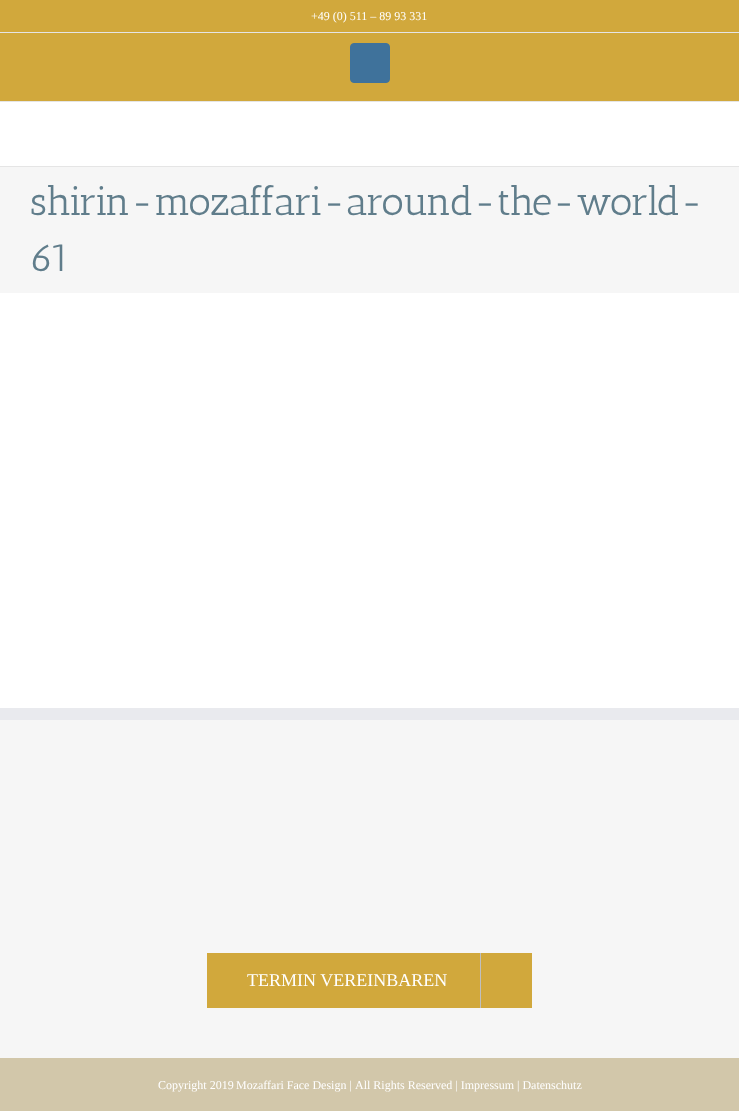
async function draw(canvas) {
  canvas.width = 739
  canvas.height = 1111
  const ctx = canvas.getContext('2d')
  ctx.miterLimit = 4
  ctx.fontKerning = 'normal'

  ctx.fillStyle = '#fff'
  ctx.fillRect(0, 0, 739, 1111)
  ctx.fillStyle = '#d1a83c'
  ctx.fillRect(0, 0, 739, 101)
  ctx.fillStyle = '#e5e5e5'
  ctx.fillRect(0, 101, 739, 1)
  ctx.fillRect(0, 32, 739, 1)
  ctx.font = '12px Liberation Serif'
  ctx.fillStyle = '#fff'
  ctx.fillText('+49 (0) 511 – 89 93 331', 311, 20)
  ctx.fillStyle = '#3f729b'
  ctx.beginPath()
  ctx.roundRect(350.5, 43.5, 39, 39, 3.5)
  ctx.fill()
  ctx.strokeStyle = '#3f729b'
  ctx.stroke()
  ctx.fillStyle = '#e5e5e5'
  ctx.fillRect(0, 166, 739, 1)
  ctx.fillStyle = '#f6f6f6'
  ctx.fillRect(0, 167, 739, 126)
  ctx.font = '40px Antic Slab'
  ctx.fillStyle = '#607d8b'
  ctx.fillText('shirin-mozaffari-around-the-world-', 30, 215)
  ctx.fillText('61', 30, 271)
  ctx.fillStyle = '#f6f6f6'
  ctx.fillRect(0, 720, 739, 338)
  ctx.fillStyle = '#e9eaee'
  ctx.fillRect(0, 708, 739, 12)
  ctx.fillStyle = '#d1a83c'
  ctx.fillRect(207, 953, 325, 55)
  ctx.font = '18px Liberation Serif'
  ctx.fillStyle = '#fff'
  ctx.fillText('TERMIN VEREINBAREN', 247, 986)
  ctx.fillStyle = '#bfbfbf'
  ctx.fillRect(480, 953, 1, 55)
  ctx.fillStyle = '#d2c7aa'
  ctx.fillRect(0, 1058, 739, 53)
  ctx.font = '12px Liberation Serif'
  ctx.fillStyle = '#fff'
  ctx.fillText('Copyright 2019', 158, 1089)
  ctx.fillText('Mozaffari Face Design |', 236, 1089)
  ctx.fillText('All Rights Reserved | Impressum | Datenschutz', 355, 1089)
}

draw(document.querySelector('canvas'))
